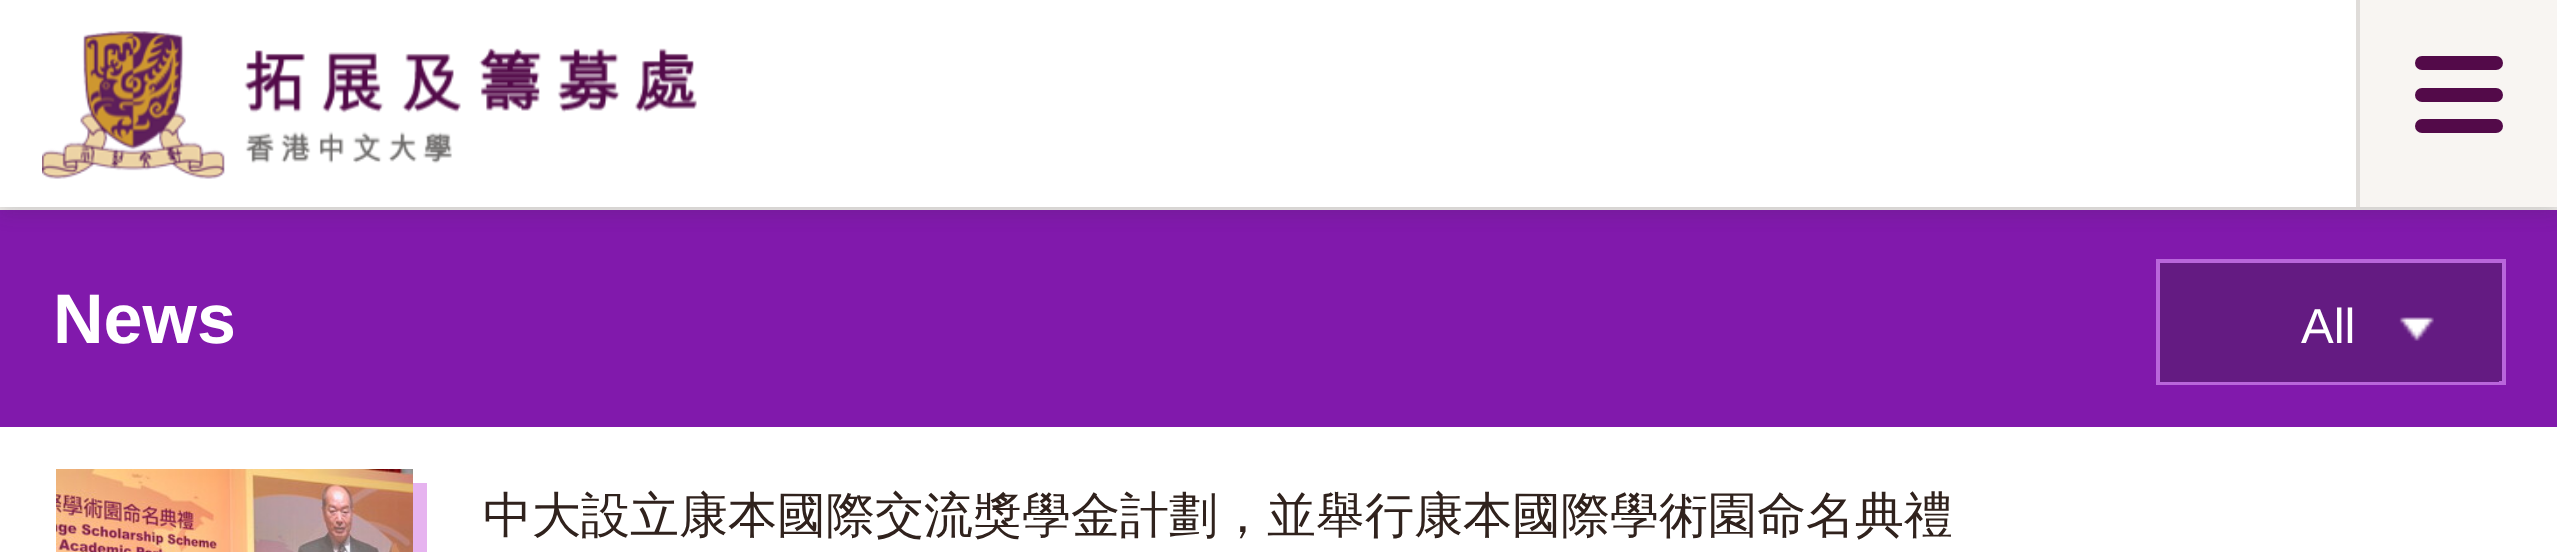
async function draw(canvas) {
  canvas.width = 2557
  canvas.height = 552
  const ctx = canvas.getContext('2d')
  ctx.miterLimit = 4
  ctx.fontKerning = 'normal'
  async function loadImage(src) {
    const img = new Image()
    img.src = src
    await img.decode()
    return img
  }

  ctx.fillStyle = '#eeebe9'
  ctx.fillRect(0, 0, 2557, 552)
  ctx.fillStyle = '#8119ac'
  ctx.fillRect(0, 210, 2557, 217)
  ctx.fillStyle = '#32323226'
  ctx.filter = 'blur(9px)'
  ctx.beginPath()
  ctx.rect(0, 7, 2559, 207)
  ctx.fill()
  ctx.filter = 'none'
  ctx.fillStyle = '#fff'
  ctx.fillRect(0, 0, 2356, 207)
  ctx.drawImage(await loadImage('image0.png'), 42, 31, 655, 148)
  ctx.fillStyle = '#f8f5f2'
  ctx.fillRect(2360, 0, 197, 207)
  ctx.fillStyle = '#dfdcd9'
  ctx.fillRect(2356, 0, 4, 207)
  ctx.fillStyle = '#530a49'
  ctx.beginPath()
  ctx.roundRect(2415, 56, 88, 14, 7)
  ctx.fill()
  ctx.beginPath()
  ctx.roundRect(2415, 88, 88, 14, 7)
  ctx.fill()
  ctx.beginPath()
  ctx.roundRect(2415, 119, 88, 14, 7)
  ctx.fill()
  ctx.font = 'bold 70px Liberation Sans'
  ctx.fillStyle = '#fff'
  ctx.fillText('News', 53, 343)
  ctx.fillRect(0, 427, 2557, 125)
  ctx.fillStyle = '#641b82'
  ctx.beginPath()
  ctx.rect(2158, 261, 346, 122)
  ctx.fill()
  ctx.strokeStyle = '#b966db'
  ctx.lineWidth = 4
  ctx.stroke()
  ctx.fillRect(2160, 381, 339, 1)
  ctx.font = '49px Liberation Sans'
  ctx.fillStyle = '#fff'
  ctx.fillText('All', 2301, 343)
  ctx.drawImage(await loadImage('image1.png'), 2399, 317, 35, 24)
  ctx.fillStyle = '#e6b3ef'
  ctx.fillRect(413, 483, 14, 69)
  ctx.drawImage(await loadImage('image2.png'), 56, 469, 357, 83)
  ctx.font = '500 49px WenQuanYi Zen Hei'
  ctx.fillStyle = '#30221d'
  ctx.fillText('中大設立康本國際交流獎學金計劃，並舉行康本國際學術園命名典禮', 483, 532)
}

draw(document.querySelector('canvas'))
